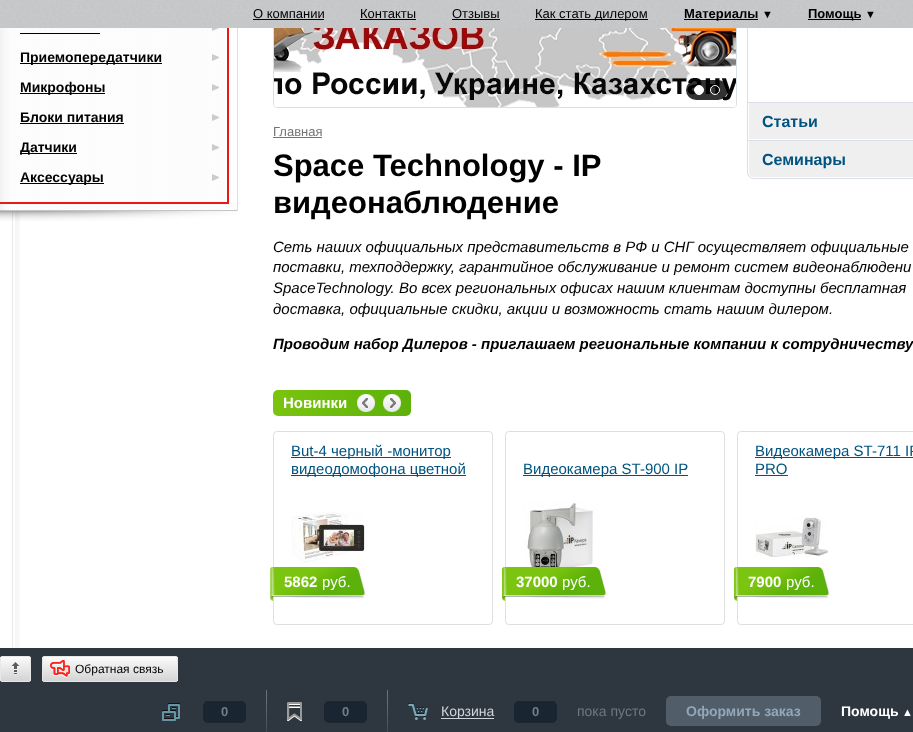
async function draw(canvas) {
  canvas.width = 913
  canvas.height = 732
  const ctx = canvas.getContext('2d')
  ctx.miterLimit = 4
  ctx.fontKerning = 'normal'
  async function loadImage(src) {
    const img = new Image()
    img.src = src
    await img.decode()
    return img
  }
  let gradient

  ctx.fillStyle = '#fff'
  ctx.fillRect(0, 0, 913, 732)
  ctx.drawImage(await loadImage('image2.png'), 0, 28, 229, 174)
  ctx.fillStyle = '#cbcbcb'
  ctx.beginPath()
  ctx.moveTo(212, 31)
  ctx.lineTo(212, 24)
  ctx.lineTo(219, 27)
  ctx.lineTo(219, 28)
  ctx.closePath()
  ctx.fill()
  ctx.beginPath()
  ctx.roundRect(273.5, -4.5, 463, 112, 3.5)
  ctx.strokeStyle = '#d9e0e5'
  ctx.stroke()
  ctx.fillStyle = '#efefef'
  ctx.beginPath()
  ctx.roundRect(747, -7, 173, 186, 7)
  ctx.fill()
  ctx.beginPath()
  ctx.roundRect(748.5, -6.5, 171, 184, 5.5)
  ctx.strokeStyle = '#fff'
  ctx.stroke()
  ctx.beginPath()
  ctx.roundRect(747.5, -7.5, 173, 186, 6.5)
  ctx.strokeStyle = '#dadfe5'
  ctx.stroke()
  ctx.drawImage(await loadImage('image0.png'), 0, 0, 913, 28)
  ctx.font = '13px Liberation Sans'
  ctx.fillStyle = '#000'
  ctx.fillText('О компании', 253, 18)
  ctx.fillRect(253, 19, 71, 1)
  ctx.fillText('Контакты', 360, 18)
  ctx.fillRect(360, 19, 56, 1)
  ctx.fillText('Отзывы', 452, 18)
  ctx.fillRect(452, 19, 48, 1)
  ctx.fillRect(535, 19, 113, 1)
  ctx.fillText('Как стать дилером', 535, 18)
  ctx.fillRect(684, 19, 74, 1)
  ctx.font = 'bold 13px Liberation Sans'
  ctx.fillText('Материалы', 684, 18)
  ctx.font = 'bold 11px Liberation Sans'
  ctx.fillText('▼', 762, 18)
  ctx.fillRect(808, 19, 53, 1)
  ctx.font = 'bold 13px Liberation Sans'
  ctx.fillText('Помощь', 808, 18)
  ctx.font = 'bold 11px Liberation Sans'
  ctx.fillText('▼', 865, 18)
  ctx.drawImage(await loadImage('image1.png'), 12, 211, 8, 437)
  ctx.fillStyle = '#dfdfdf'
  ctx.fillRect(237, 28, 1, 174)
  ctx.fillStyle = '#000'
  ctx.fillRect(20, 33, 80, 1)
  ctx.fillRect(20, 63, 142, 1)
  ctx.font = 'bold 14px Liberation Sans'
  ctx.fillText('Приемопередатчики', 20, 62)
  ctx.fillStyle = '#cbcbcb'
  ctx.beginPath()
  ctx.moveTo(212, 61)
  ctx.lineTo(212, 54)
  ctx.lineTo(219, 57)
  ctx.lineTo(219, 58)
  ctx.closePath()
  ctx.fill()
  ctx.fillStyle = '#000'
  ctx.fillRect(20, 93, 85, 1)
  ctx.fillText('Микрофоны', 20, 92)
  ctx.fillStyle = '#cbcbcb'
  ctx.beginPath()
  ctx.moveTo(212, 91)
  ctx.lineTo(212, 84)
  ctx.lineTo(219, 87)
  ctx.lineTo(219, 88)
  ctx.closePath()
  ctx.fill()
  ctx.fillStyle = '#000'
  ctx.fillText('Блоки питания', 20, 122)
  ctx.fillRect(20, 123, 104, 1)
  ctx.fillStyle = '#cbcbcb'
  ctx.beginPath()
  ctx.moveTo(212, 121)
  ctx.lineTo(212, 114)
  ctx.lineTo(219, 117)
  ctx.lineTo(219, 118)
  ctx.closePath()
  ctx.fill()
  ctx.fillStyle = '#000'
  ctx.fillRect(20, 153, 57, 1)
  ctx.fillText('Датчики', 20, 152)
  ctx.fillStyle = '#cbcbcb'
  ctx.beginPath()
  ctx.moveTo(212, 151)
  ctx.lineTo(212, 144)
  ctx.lineTo(219, 147)
  ctx.lineTo(219, 148)
  ctx.closePath()
  ctx.fill()
  ctx.fillStyle = '#000'
  ctx.fillRect(20, 183, 84, 1)
  ctx.fillText('Аксессуары', 20, 182)
  ctx.fillStyle = '#cbcbcb'
  ctx.beginPath()
  ctx.moveTo(212, 181)
  ctx.lineTo(212, 174)
  ctx.lineTo(219, 177)
  ctx.lineTo(219, 178)
  ctx.closePath()
  ctx.fill()
  ctx.drawImage(await loadImage('image3.png'), 0, 202, 238, 19)
  ctx.drawImage(await loadImage('image5.png'), 274, 104, 462, 3)
  ctx.drawImage(await loadImage('image4.png'), 274, 28, 462, 79)
  ctx.fillStyle = '#000000cc'
  ctx.beginPath()
  ctx.roundRect(686, 80, 42, 20, 10)
  ctx.fill()
  ctx.fillStyle = '#fff'
  ctx.beginPath()
  ctx.arc(699, 90, 4.5, 0, 2 * Math.PI)
  ctx.fill()
  ctx.strokeStyle = '#fff'
  ctx.stroke()
  ctx.beginPath()
  ctx.arc(715, 90, 4.5, 0, 2 * Math.PI)
  ctx.stroke()
  ctx.font = '13px Liberation Sans'
  ctx.fillStyle = '#737373'
  ctx.fillText('Главная', 273, 136)
  ctx.fillRect(273, 137, 49, 1)
  ctx.font = 'bold 31px Liberation Sans'
  ctx.fillStyle = '#000'
  ctx.fillText('Space Technology - IP', 273, 176)
  ctx.fillText('видеонаблюдение', 273, 213)
  ctx.fillStyle = '#fff'
  ctx.fillRect(749, 28, 164, 74)
  ctx.fillRect(748, 139, 165, 1)
  ctx.fillStyle = '#dadfe5'
  ctx.fillRect(748, 102, 165, 1)
  ctx.font = 'bold 16px Liberation Sans'
  ctx.fillStyle = '#005380'
  ctx.fillText('Статьи', 762, 127)
  ctx.save()
  ctx.beginPath()
  ctx.roundRect(748, -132, 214, 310, 6)
  ctx.clip()
  ctx.fillStyle = '#fff'
  ctx.fillRect(748, 177, 165, 1)
  ctx.restore()
  ctx.fillStyle = '#dadfe5'
  ctx.fillRect(748, 140, 165, 1)
  ctx.fillStyle = '#005380'
  ctx.fillText('Семинары', 762, 165)
  ctx.font = 'italic 15px Liberation Sans'
  ctx.fillStyle = '#000'
  ctx.fillText('Сеть наших официальных представительств в РФ и СНГ осуществляет официальные', 273, 252)
  ctx.fillText('поставки, техподдержку, гарантийное обслуживание и ремонт систем видеонаблюдени', 273, 272)
  ctx.fillText('SpaceTechnology. Во всех региональных офисах нашим клиентам доступны бесплатная', 273, 293)
  ctx.fillText('доставка, официальные скидки, акции и возможность стать нашим дилером.', 273, 314)
  ctx.font = 'italic bold 15px Liberation Sans'
  ctx.fillText('Проводим набор Дилеров - приглашаем региональные компании к сотрудничеству', 273, 349)
  gradient = ctx.createLinearGradient(273, 403, 411, 403)
  gradient.addColorStop(0, '#7bc40f')
  gradient.addColorStop(1, '#5cb10a')
  ctx.fillStyle = gradient
  ctx.beginPath()
  ctx.roundRect(273, 390, 138, 26, 5)
  ctx.fill()
  ctx.font = 'bold 15px Liberation Sans'
  ctx.fillStyle = '#fff'
  ctx.fillText('Новинки', 283, 408)
  ctx.drawImage(await loadImage('image6.png'), 357, 394, 18, 18)
  ctx.drawImage(await loadImage('image7.png'), 383, 394, 18, 18)
  ctx.beginPath()
  ctx.roundRect(273.5, 431.5, 219, 193, 3.5)
  ctx.strokeStyle = '#dfdfdf'
  ctx.stroke()
  ctx.drawImage(await loadImage('image10.png'), 270, 567, 6, 34)
  gradient = ctx.createLinearGradient(261, 528, 273, 528)
  gradient.addColorStop(0.33, '#fff')
  gradient.addColorStop(1, '#ffffff00')
  ctx.fillStyle = gradient
  ctx.fillRect(270, 567, 3, 34)
  ctx.fillStyle = '#005380'
  ctx.fillRect(291, 457, 160, 1)
  ctx.font = '15px Liberation Sans'
  ctx.fillText('But-4 черный -монитор', 291, 456)
  ctx.fillRect(291, 475, 175, 1)
  ctx.fillText('видеодомофона цветной', 291, 474)
  ctx.drawImage(await loadImage('image8.png'), 291, 512, 74, 53)
  ctx.drawImage(await loadImage('image9.png'), 276, 567, 90, 32)
  ctx.font = 'bold 15px Liberation Sans'
  ctx.fillStyle = '#fff'
  ctx.fillText('5862', 284, 587)
  ctx.font = '15px Liberation Sans'
  ctx.fillText('руб.', 322, 587)
  ctx.beginPath()
  ctx.roundRect(505.5, 431.5, 219, 193, 3.5)
  ctx.stroke()
  ctx.fillStyle = '#005380'
  ctx.fillRect(523, 475, 165, 1)
  ctx.fillText('Видеокамера ST-900 IP', 523, 474)
  ctx.drawImage(await loadImage('image11.png'), 523, 501, 72, 67)
  ctx.drawImage(await loadImage('image12.png'), 508, 567, 98, 32)
  ctx.drawImage(await loadImage('image10.png'), 502, 567, 6, 34)
  ctx.font = 'bold 15px Liberation Sans'
  ctx.fillStyle = '#fff'
  ctx.fillText('37000', 516, 587)
  ctx.font = '15px Liberation Sans'
  ctx.fillText('руб.', 562, 587)
  ctx.beginPath()
  ctx.roundRect(737.5, 431.5, 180, 193, 3.5)
  ctx.stroke()
  ctx.fillStyle = '#005380'
  ctx.fillRect(755, 457, 158, 1)
  ctx.fillText('Видеокамера ST-711 IP', 755, 456)
  ctx.fillText('PRO', 755, 474)
  ctx.fillRect(755, 475, 33, 1)
  ctx.drawImage(await loadImage('image13.png'), 755, 517, 73, 40)
  ctx.drawImage(await loadImage('image9.png'), 740, 567, 90, 32)
  ctx.drawImage(await loadImage('image10.png'), 734, 567, 6, 34)
  ctx.font = 'bold 15px Liberation Sans'
  ctx.fillStyle = '#fff'
  ctx.fillText('7900', 748, 587)
  ctx.font = '15px Liberation Sans'
  ctx.fillText('руб.', 786, 587)
  ctx.fillStyle = '#2e3740'
  ctx.fillRect(0, 648, 913, 84)
  ctx.save()
  ctx.beginPath()
  ctx.roundRect(0, 656, 31, 26, 2)
  ctx.clip()
  gradient = ctx.createLinearGradient(15, 657, 16, 681)
  gradient.addColorStop(0, '#fbfbfb')
  gradient.addColorStop(1, '#d4d4d4')
  ctx.fillStyle = gradient
  ctx.fillRect(0, 657, 31, 24)
  ctx.restore()
  ctx.beginPath()
  ctx.roundRect(0.5, 656.5, 30, 25, 1.5)
  ctx.strokeStyle = '#e7e7e7'
  ctx.stroke()
  ctx.drawImage(await loadImage('image14.png'), 11, 662, 9, 13)
  ctx.save()
  ctx.beginPath()
  ctx.roundRect(42, 656, 136, 26, 2)
  ctx.clip()
  gradient = ctx.createLinearGradient(110, 657, 110, 681)
  gradient.addColorStop(0, '#fbfbfb')
  gradient.addColorStop(1, '#d4d4d4')
  ctx.fillStyle = gradient
  ctx.fillRect(42, 657, 136, 24)
  ctx.restore()
  ctx.beginPath()
  ctx.roundRect(42.5, 656.5, 135, 25, 1.5)
  ctx.stroke()
  ctx.drawImage(await loadImage('image15.png'), 50, 660, 20, 18)
  ctx.font = '12px Liberation Sans'
  ctx.fillStyle = '#000'
  ctx.fillText('Обратная связь', 75, 673)
  ctx.drawImage(await loadImage('image16.png'), 162, 703, 18, 18)
  ctx.fillStyle = '#192531'
  ctx.beginPath()
  ctx.roundRect(203, 701, 43, 22, 5)
  ctx.fill()
  ctx.font = 'bold 13px Liberation Sans'
  ctx.fillStyle = '#717e8c'
  ctx.fillText('0', 221, 716)
  ctx.drawImage(await loadImage('image17.png'), 266, 690, 1, 42)
  ctx.drawImage(await loadImage('image18.png'), 287, 702, 15, 20)
  ctx.fillStyle = '#192531'
  ctx.beginPath()
  ctx.roundRect(324, 701, 43, 22, 5)
  ctx.fill()
  ctx.fillStyle = '#717e8c'
  ctx.fillText('0', 342, 716)
  ctx.drawImage(await loadImage('image17.png'), 387, 690, 1, 42)
  ctx.drawImage(await loadImage('image19.png'), 408, 703, 20, 17)
  ctx.fillStyle = '#ced4d9'
  ctx.fillRect(441, 718, 53, 1)
  ctx.font = '14px Liberation Sans'
  ctx.fillText('Корзина', 441, 716)
  ctx.fillStyle = '#192531'
  ctx.beginPath()
  ctx.roundRect(514, 701, 43, 22, 5)
  ctx.fill()
  ctx.font = 'bold 13px Liberation Sans'
  ctx.fillStyle = '#717e8c'
  ctx.fillText('0', 532, 716)
  ctx.font = '14px Liberation Sans'
  ctx.fillStyle = '#6b7883'
  ctx.fillText('пока пусто', 577, 716)
  ctx.fillStyle = '#515e6a'
  ctx.beginPath()
  ctx.roundRect(666, 696, 155, 30, 5)
  ctx.fill()
  ctx.font = 'bold 14px Liberation Sans'
  ctx.fillStyle = '#92a7bb'
  ctx.fillText('Оформить заказ', 686, 716)
  ctx.fillStyle = '#fff'
  ctx.fillText('Помощь', 841, 716)
  ctx.font = 'bold 11px Liberation Sans'
  ctx.fillText('▲', 902, 716)
}

draw(document.querySelector('canvas'))
